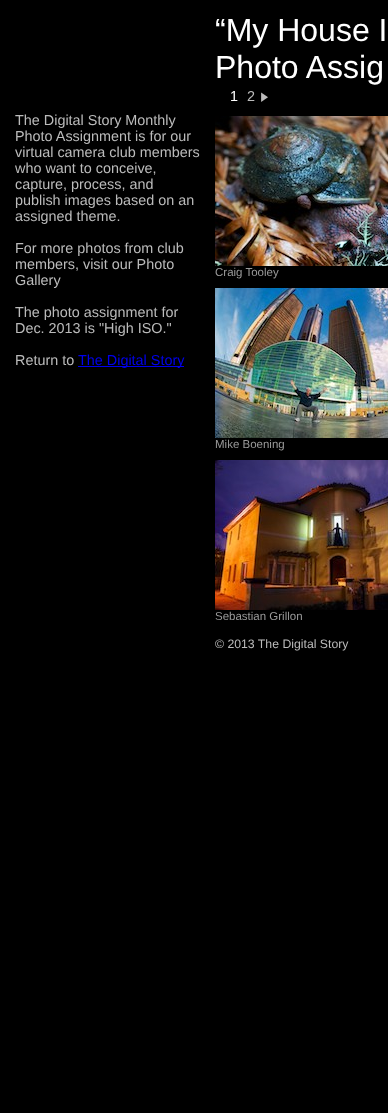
async function draw(canvas) {
  canvas.width = 388
  canvas.height = 1113
  const ctx = canvas.getContext('2d')
  ctx.miterLimit = 4
  ctx.fontKerning = 'normal'
  async function loadImage(src) {
    const img = new Image()
    img.src = src
    await img.decode()
    return img
  }

  ctx.fillStyle = '#000'
  ctx.fillRect(0, 0, 388, 1113)
  ctx.font = '32px Liberation Sans'
  ctx.fillStyle = '#fff'
  ctx.fillText('“My House I', 215, 41)
  ctx.fillText('Photo Assig', 215, 78)
  ctx.font = '14.4px Liberation Sans'
  ctx.fillText('1', 230, 101)
  ctx.fillStyle = '#bbb'
  ctx.fillText('2', 247, 101)
  ctx.drawImage(await loadImage('image0.png'), 261, 92, 7, 10)
  ctx.fillText('The Digital Story Monthly', 15, 125)
  ctx.fillText('Photo Assignment is for our', 15, 141)
  ctx.fillText('virtual camera club members', 15, 157)
  ctx.fillText('who want to conceive,', 15, 173)
  ctx.fillText('capture, process, and', 15, 189)
  ctx.fillText('publish images based on an', 15, 205)
  ctx.fillText('assigned theme.', 15, 221)
  ctx.fillText('For more photos from club', 15, 253)
  ctx.fillText('members, visit our Photo', 15, 269)
  ctx.fillText('Gallery', 15, 285)
  ctx.fillText('The photo assignment for', 15, 317)
  ctx.fillText('Dec. 2013 is "High ISO."', 15, 333)
  ctx.fillText('Return to', 15, 365)
  ctx.fillStyle = '#00e'
  ctx.fillRect(78, 366, 106, 1)
  ctx.fillText('The Digital Story', 78, 365)
  ctx.drawImage(await loadImage('image1.png'), 215, 116, 173, 150)
  ctx.font = '11.5px Liberation Sans'
  ctx.fillStyle = '#999'
  ctx.fillText('Craig Tooley', 215, 276)
  ctx.drawImage(await loadImage('image2.png'), 215, 288, 173, 150)
  ctx.fillText('Mike Boening', 215, 448)
  ctx.drawImage(await loadImage('image3.png'), 215, 460, 173, 150)
  ctx.fillText('Sebastian Grillon', 215, 620)
  ctx.font = '12.25px Liberation Sans'
  ctx.fillStyle = '#bbb'
  ctx.fillText('© 2013 The Digital Story', 215, 648)
}

draw(document.querySelector('canvas'))
